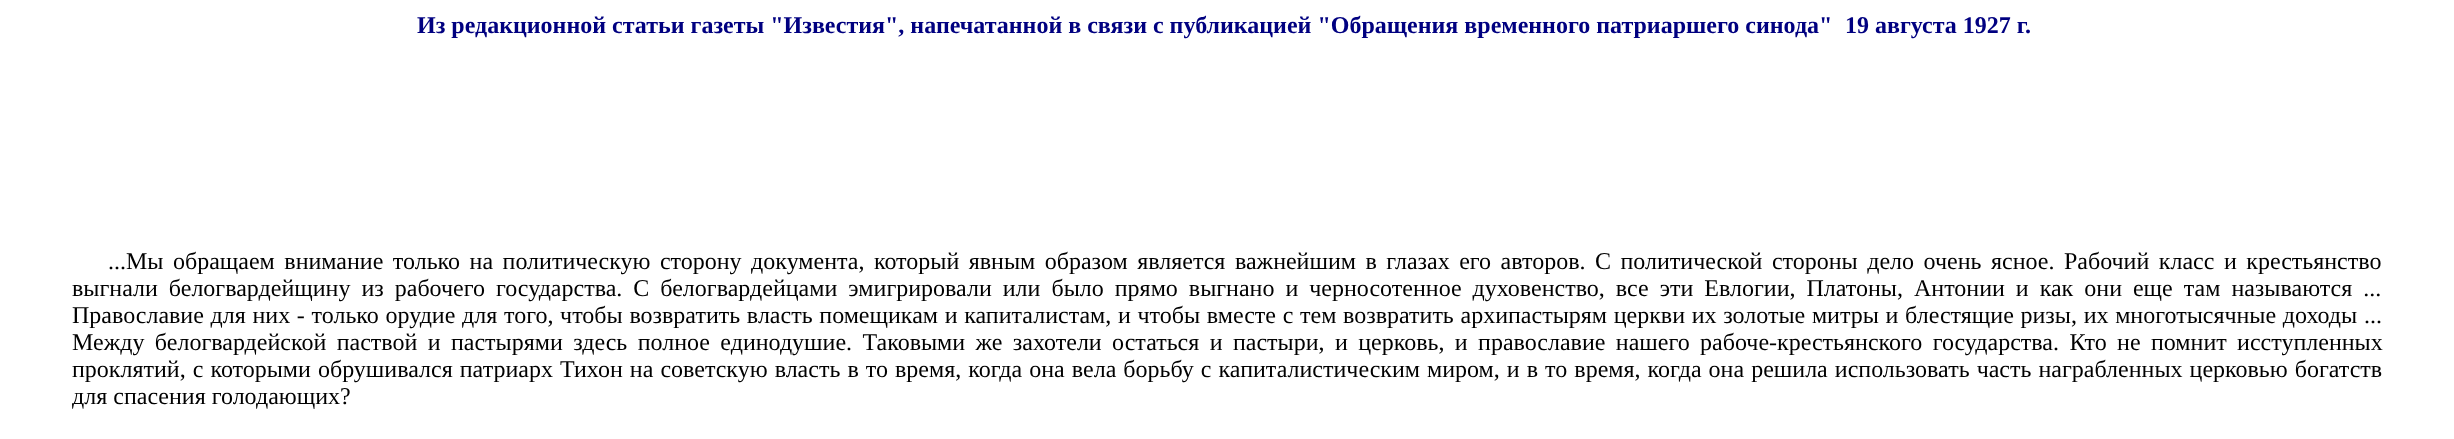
async function draw(canvas) {
  canvas.width = 2454
  canvas.height = 439
  const ctx = canvas.getContext('2d')
  ctx.miterLimit = 4
  ctx.fontKerning = 'normal'

  ctx.fillStyle = '#fff'
  ctx.fillRect(0, 0, 2454, 439)
  ctx.font = 'bold 24px Liberation Serif'
  ctx.fillStyle = '#000080'
  ctx.fillText('Из редакционной статьи газеты "Известия", напечатанной в связи с публикацией "Обращения временного патриаршего синода"', 417, 33)
  ctx.fillText('19 августа 1927 г.', 1845, 33)
  ctx.wordSpacing = '3.5px'
  ctx.font = '24px Liberation Serif'
  ctx.fillStyle = '#000'
  ctx.fillText('...Мы обращаем внимание только на политическую сторону документа, который явным образом является важнейшим в глазах его авторов. С политической стороны дело очень ясное. Рабочий класс и крестьянство', 108, 269)
  ctx.wordSpacing = '5px'
  ctx.fillText('выгнали белогвардейщину из рабочего государства. С белогвардейцами эмигрировали или было прямо выгнано и черносотенное духовенство, все эти Евлогии, Платоны, Антонии и как они еще там называются ...', 72, 296)
  ctx.wordSpacing = '0.7px'
  ctx.fillText('Православие для них - только орудие для того, чтобы возвратить власть помещикам и капиталистам, и чтобы вместе с тем возвратить архипастырям церкви их золотые митры и блестящие ризы, их многотысячные доходы ...', 72, 323)
  ctx.wordSpacing = '4.4px'
  ctx.fillText('Между белогвардейской паствой и пастырями здесь полное единодушие. Таковыми же захотели остаться и пастыри, и церковь, и православие нашего рабоче-крестьянского государства. Кто не помнит исступленных', 72, 350)
  ctx.wordSpacing = '1.05px'
  ctx.fillText('проклятий, с которыми обрушивался патриарх Тихон на советскую власть в то время, когда она вела борьбу с капиталистическим миром, и в то время, когда она решила использовать часть награбленных церковью богатств', 72, 377)
  ctx.wordSpacing = '0px'
  ctx.fillText('для спасения голодающих?', 72, 404)
}

draw(document.querySelector('canvas'))
